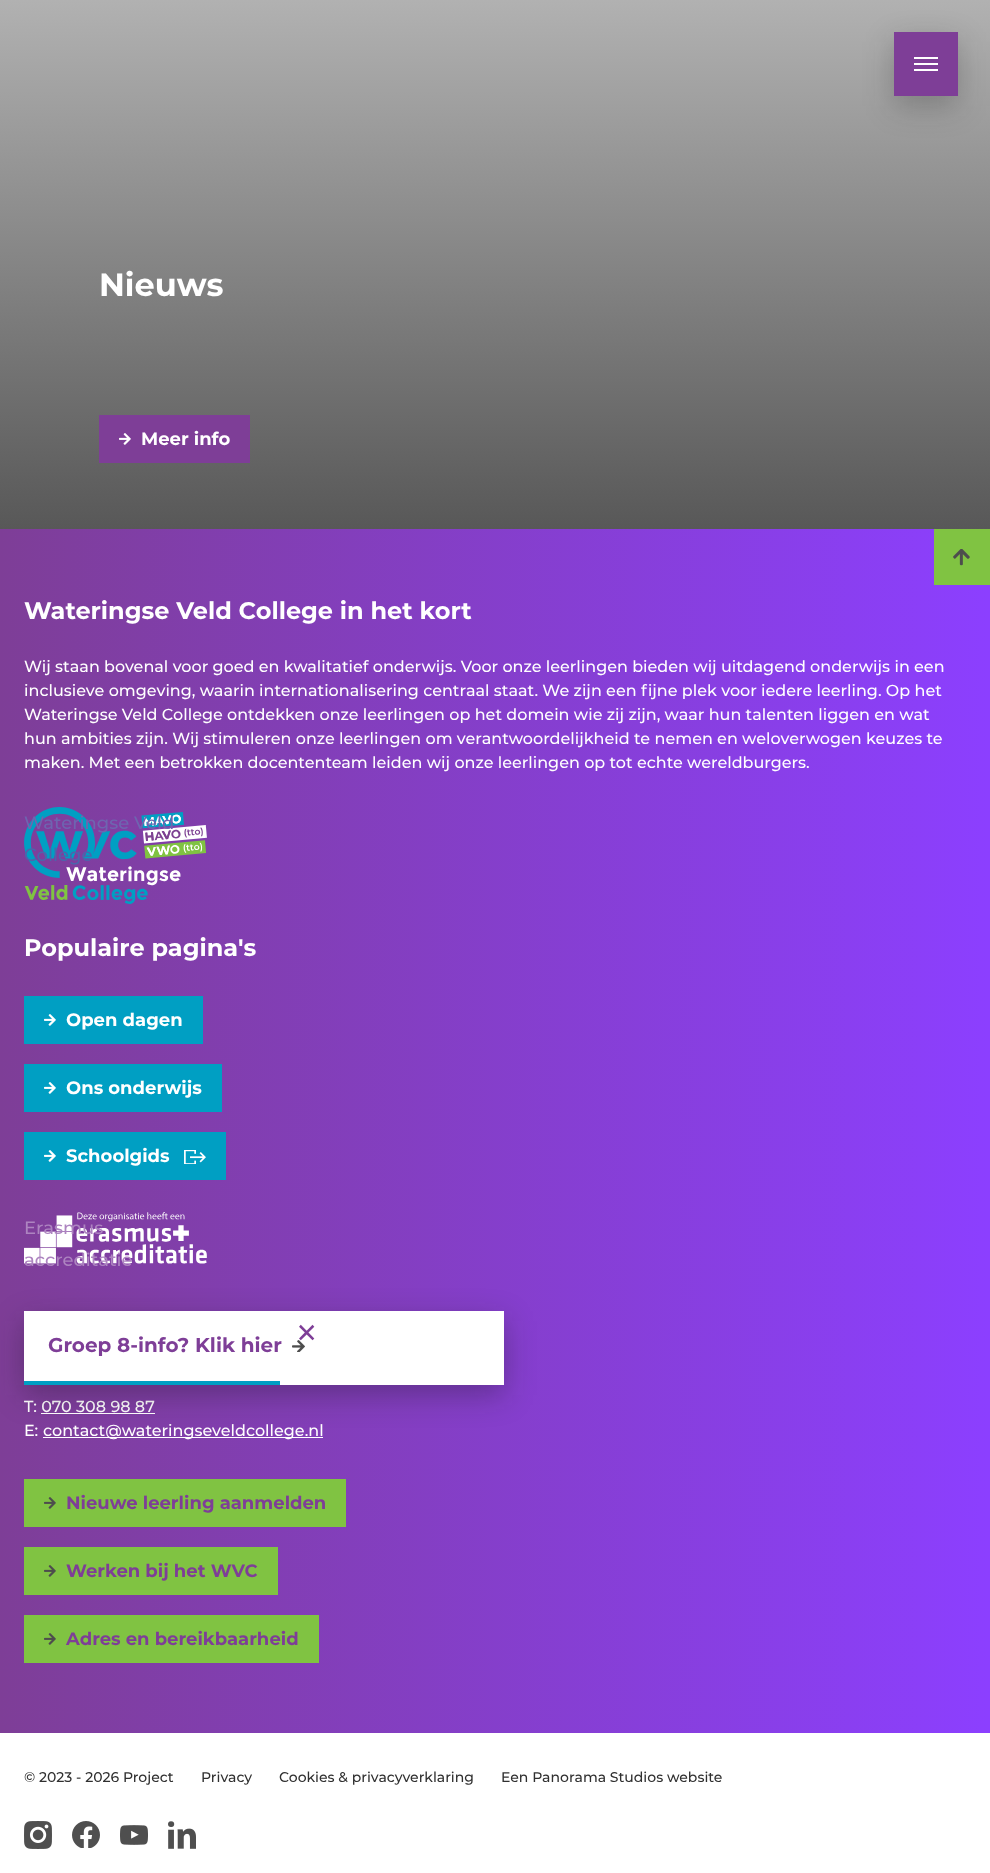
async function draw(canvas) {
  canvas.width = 990
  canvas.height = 1873
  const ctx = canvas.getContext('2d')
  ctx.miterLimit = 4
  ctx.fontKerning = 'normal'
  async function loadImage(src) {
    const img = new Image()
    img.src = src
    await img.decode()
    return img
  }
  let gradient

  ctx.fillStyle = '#fff'
  ctx.fillRect(0, 0, 990, 1873)
  gradient = ctx.createLinearGradient(495, 529, 495, -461)
  gradient.addColorStop(0, '#585858')
  gradient.addColorStop(1, '#fff')
  ctx.fillStyle = gradient
  ctx.fillRect(0, 0, 990, 529)
  ctx.font = 'bold 32px Montserrat'
  ctx.fillStyle = '#fff'
  ctx.fillText('Nieuws', 99, 296)
  ctx.fillStyle = '#7e3e97'
  ctx.fillRect(99, 415, 151, 48)
  ctx.drawImage(await loadImage('image0.png'), 119, 433, 12, 12)
  ctx.font = 'bold 18px Montserrat'
  ctx.fillStyle = '#fff'
  ctx.fillText('Meer info', 141, 445)
  gradient = ctx.createLinearGradient(0, 1131, 990, 1131)
  gradient.addColorStop(0, '#7e3e97')
  gradient.addColorStop(1, '#8c3fff')
  ctx.fillStyle = gradient
  ctx.fillRect(0, 529, 990, 1204)
  ctx.fillStyle = '#80c342'
  ctx.fillRect(934, 529, 56, 56)
  ctx.drawImage(await loadImage('image1.png'), 953, 549, 17, 17)
  ctx.font = 'bold 24px Montserrat'
  ctx.fillStyle = '#fff'
  ctx.fillText('Wateringse Veld College in het kort', 24, 619)
  ctx.font = '500 16px Montserrat'
  ctx.fillText('Wij staan bovenal voor goed en kwalitatief onderwijs. Voor onze leerlingen bieden wij uitdagend onderwijs in een', 24, 672)
  ctx.fillText('inclusieve omgeving, waarin internationalisering centraal staat. We zijn een fijne plek voor iedere leerling. Op het', 24, 696)
  ctx.fillText('Wateringse Veld College ontdekken onze leerlingen op het domein wie zij zijn, waar hun talenten liggen en wat', 24, 720)
  ctx.fillText('hun ambities zijn. Wij stimuleren onze leerlingen om verantwoordelijkheid te nemen en weloverwogen keuzes te', 24, 744)
  ctx.fillText('maken. Met een betrokken docententeam leiden wij onze leerlingen op tot echte wereldburgers.', 24, 768)
  ctx.drawImage(await loadImage('image2.png'), 24, 807, 183, 97)
  ctx.font = '500 18px Montserrat'
  ctx.fillStyle = '#6e65b0'
  ctx.fillText('Wateringse Veld', 24, 829)
  ctx.fillStyle = '#4c65ac'
  ctx.fillText('College', 24, 861)
  ctx.font = 'bold 24px Montserrat'
  ctx.fillStyle = '#fff'
  ctx.fillText('Populaire pagina\'s', 24, 956)
  ctx.fillStyle = '#009fc3'
  ctx.fillRect(24, 996, 179, 48)
  ctx.drawImage(await loadImage('image3.png'), 44, 1014, 12, 12)
  ctx.font = 'bold 18px Montserrat'
  ctx.fillStyle = '#fff'
  ctx.fillText('Open dagen', 66, 1026)
  ctx.fillStyle = '#009fc3'
  ctx.fillRect(24, 1064, 198, 48)
  ctx.drawImage(await loadImage('image3.png'), 44, 1082, 12, 12)
  ctx.fillStyle = '#fff'
  ctx.fillText('Ons onderwijs', 66, 1094)
  ctx.fillStyle = '#009fc3'
  ctx.fillRect(24, 1132, 202, 48)
  ctx.drawImage(await loadImage('image3.png'), 44, 1150, 12, 12)
  ctx.fillStyle = '#fff'
  ctx.fillText('Schoolgids', 66, 1162)
  ctx.drawImage(await loadImage('image4.png'), 184, 1150, 22, 14)
  ctx.drawImage(await loadImage('image5.png'), 24, 1212, 183, 52)
  ctx.font = '500 18px Montserrat'
  ctx.fillStyle = '#ad84c0'
  ctx.fillText('Erasmus', 24, 1234)
  ctx.fillText('accreditatie', 24, 1266)
  ctx.font = '500 16px Montserrat'
  ctx.fillStyle = '#fff'
  ctx.fillText('T: 070 308 98 87', 24, 1412)
  ctx.fillRect(41, 1413, 114, 1)
  ctx.fillText('E:', 24, 1436)
  ctx.fillRect(43, 1437, 280, 1)
  ctx.fillText('contact@wateringseveldcollege.nl', 43, 1436)
  ctx.fillStyle = '#80c342'
  ctx.fillRect(24, 1479, 322, 48)
  ctx.drawImage(await loadImage('image6.png'), 44, 1497, 12, 12)
  ctx.font = 'bold 18px Montserrat'
  ctx.fillStyle = '#7e3e97'
  ctx.fillText('Nieuwe leerling aanmelden', 66, 1509)
  ctx.fillStyle = '#80c342'
  ctx.fillRect(24, 1547, 254, 48)
  ctx.drawImage(await loadImage('image6.png'), 44, 1565, 12, 12)
  ctx.fillStyle = '#7e3e97'
  ctx.fillText('Werken bij het WVC', 66, 1577)
  ctx.fillStyle = '#80c342'
  ctx.fillRect(24, 1615, 295, 48)
  ctx.drawImage(await loadImage('image6.png'), 44, 1633, 12, 12)
  ctx.fillStyle = '#7e3e97'
  ctx.fillText('Adres en bereikbaarheid', 66, 1645)
  ctx.font = '500 14px Montserrat'
  ctx.fillStyle = '#303030'
  ctx.fillText('© 2023 - 2026 Project', 24, 1782)
  ctx.fillText('Privacy', 201, 1782)
  ctx.fillText('Cookies & privacyverklaring', 279, 1782)
  ctx.fillText('Een Panorama Studios website', 501, 1782)
  ctx.drawImage(await loadImage('image7.png'), 24, 1821, 28, 28)
  ctx.drawImage(await loadImage('image8.png'), 72, 1821, 28, 27)
  ctx.drawImage(await loadImage('image9.png'), 120, 1825, 28, 20)
  ctx.drawImage(await loadImage('image10.png'), 168, 1821, 28, 28)
  ctx.fillStyle = '#12121240'
  ctx.filter = 'blur(15px)'
  ctx.beginPath()
  ctx.rect(894, 42, 64, 64)
  ctx.fill()
  ctx.filter = 'none'
  ctx.fillStyle = '#7e3e97'
  ctx.fillRect(894, 32, 64, 64)
  ctx.fillStyle = '#fff'
  ctx.fillRect(914, 63, 24, 2)
  ctx.fillRect(914, 57, 24, 2)
  ctx.fillRect(914, 69, 24, 2)
  ctx.fillStyle = '#1212124d'
  ctx.filter = 'blur(15px)'
  ctx.beginPath()
  ctx.rect(24, 1321, 480, 74)
  ctx.fill()
  ctx.filter = 'none'
  ctx.fillStyle = '#fff'
  ctx.fillRect(24, 1311, 480, 74)
  ctx.font = '44px Montserrat'
  ctx.fillStyle = '#7e3e97'
  ctx.fillText('×', 294, 1348)
  ctx.font = 'bold 20px Montserrat'
  ctx.fillText('Groep 8-info? Klik hier', 48, 1352)
  ctx.drawImage(await loadImage('image11.png'), 292, 1340, 13, 12)
  ctx.fillStyle = '#009fc3'
  ctx.fillRect(24, 1381, 256, 4)
}

draw(document.querySelector('canvas'))
